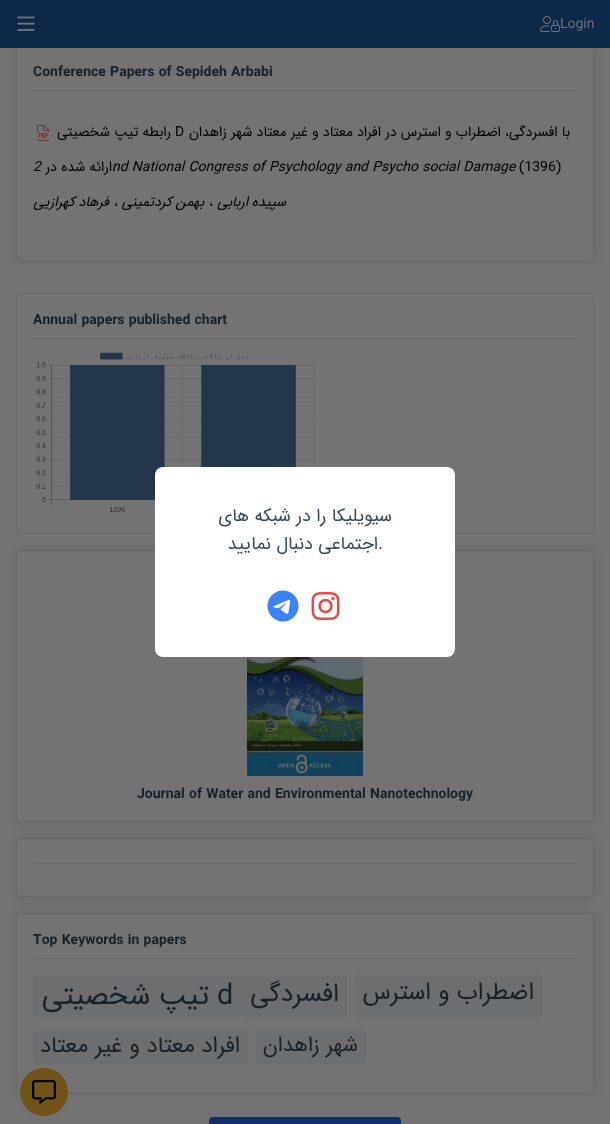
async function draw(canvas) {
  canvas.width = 610
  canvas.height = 1124
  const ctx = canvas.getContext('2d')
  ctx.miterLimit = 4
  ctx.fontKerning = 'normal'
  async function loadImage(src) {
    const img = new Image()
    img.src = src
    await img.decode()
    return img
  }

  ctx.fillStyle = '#737373'
  ctx.fillRect(0, 0, 610, 1124)
  ctx.fillStyle = '#0000001a'
  ctx.filter = 'blur(5px)'
  ctx.beginPath()
  ctx.roundRect(16, 45, 578, 216, 4)
  ctx.fill()
  ctx.filter = 'none'
  ctx.fillStyle = '#737373'
  ctx.beginPath()
  ctx.roundRect(16.5, 45.5, 577, 215, 3.5)
  ctx.fill()
  ctx.strokeStyle = '#67686a'
  ctx.stroke()
  ctx.fillStyle = '#0d2848'
  ctx.fillRect(0, 0, 610, 48)
  ctx.font = '14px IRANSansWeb'
  ctx.fillStyle = '#737373'
  ctx.fillText('Login', 560, 28)
  ctx.drawImage(await loadImage('image0.png'), 540, 16, 20, 16)
  ctx.drawImage(await loadImage('image1.png'), 17, 16, 18, 15)
  ctx.fillStyle = '#67686a'
  ctx.fillRect(33, 90, 544, 1)
  ctx.font = 'bold 14px IRANSansWeb'
  ctx.fillStyle = '#17212a'
  ctx.fillText('Conference Papers of Sepideh Arbabi', 33, 76)
  ctx.direction = 'rtl'
  ctx.font = '14px IRANSansWeb'
  ctx.fillStyle = '#000'
  ctx.fillText('با افسردگی، اضطراب و استرس در افراد معتاد و غیر معتاد شهر زاهدان', 570, 136)
  ctx.direction = 'ltr'
  ctx.fillText('D', 175, 136)
  ctx.direction = 'rtl'
  ctx.fillText('رابطه تیپ شخصیتی', 171, 136)
  ctx.drawImage(await loadImage('image2.png'), 37, 125, 12, 16)
  ctx.direction = 'ltr'
  ctx.fillText('(1396)', 519, 171)
  ctx.font = 'italic 14px IRANSansWeb'
  ctx.fillText('nd National Congress of Psychology and Psycho social Damage', 112, 171)
  ctx.direction = 'rtl'
  ctx.font = '14px IRANSansWeb'
  ctx.fillText('ارائه شده در', 112, 171)
  ctx.direction = 'ltr'
  ctx.font = 'italic 14px IRANSansWeb'
  ctx.fillText('2', 33, 171)
  ctx.direction = 'rtl'
  ctx.fillText('سپیده', 286, 206)
  ctx.fillText('اربابی', 248, 206)
  ctx.direction = 'ltr'
  ctx.font = '14px IRANSansWeb'
  ctx.fillText('،', 209, 206)
  ctx.direction = 'rtl'
  ctx.font = 'italic 14px IRANSansWeb'
  ctx.fillText('بهمن', 204, 206)
  ctx.fillText('کردتمینی', 172, 206)
  ctx.direction = 'ltr'
  ctx.font = '14px IRANSansWeb'
  ctx.fillText('،', 114, 206)
  ctx.direction = 'rtl'
  ctx.font = 'italic 14px IRANSansWeb'
  ctx.fillText('فرهاد', 109, 206)
  ctx.fillText('کهرازیی', 75, 206)
  ctx.beginPath()
  ctx.roundRect(16.5, 293.5, 577, 240, 3.5)
  ctx.stroke()
  ctx.fillStyle = '#67686a'
  ctx.fillRect(33, 338, 544, 1)
  ctx.direction = 'ltr'
  ctx.font = 'bold 14px IRANSansWeb'
  ctx.fillStyle = '#17212a'
  ctx.fillText('Annual papers published chart', 33, 324)
  ctx.drawImage(await loadImage('image3.png'), 36, 352, 279, 161)
  ctx.fillStyle = '#0000001a'
  ctx.filter = 'blur(5px)'
  ctx.beginPath()
  ctx.roundRect(16, 550, 578, 272, 4)
  ctx.fill()
  ctx.filter = 'none'
  ctx.fillStyle = '#737373'
  ctx.beginPath()
  ctx.roundRect(16.5, 550.5, 577, 271, 3.5)
  ctx.fill()
  ctx.stroke()
  ctx.drawImage(await loadImage('image4.png'), 247, 657, 116, 119)
  ctx.fillStyle = '#17212a'
  ctx.fillText('Journal of Water and Environmental Nanotechnology', 137, 798)
  ctx.fillStyle = '#0000001a'
  ctx.filter = 'blur(5px)'
  ctx.beginPath()
  ctx.roundRect(16, 838, 578, 59, 4)
  ctx.fill()
  ctx.filter = 'none'
  ctx.fillStyle = '#737373'
  ctx.beginPath()
  ctx.roundRect(16.5, 838.5, 577, 58, 3.5)
  ctx.fill()
  ctx.stroke()
  ctx.fillStyle = '#67686a'
  ctx.fillRect(33, 863, 544, 1)
  ctx.fillStyle = '#0000001a'
  ctx.filter = 'blur(5px)'
  ctx.beginPath()
  ctx.roundRect(16, 913, 578, 180, 4)
  ctx.fill()
  ctx.filter = 'none'
  ctx.fillStyle = '#737373'
  ctx.beginPath()
  ctx.roundRect(16.5, 913.5, 577, 179, 3.5)
  ctx.fill()
  ctx.stroke()
  ctx.fillStyle = '#67686a'
  ctx.fillRect(33, 958, 544, 1)
  ctx.fillStyle = '#17212a'
  ctx.fillText('Top Keywords in papers', 33, 944)
  ctx.fillStyle = '#6d6e6f'
  ctx.beginPath()
  ctx.roundRect(355, 975, 187, 43, 4)
  ctx.fill()
  ctx.direction = 'rtl'
  ctx.font = '24px IRANSansWeb'
  ctx.fillStyle = '#17212a'
  ctx.fillText('اضطراب و استرس', 534, 999)
  ctx.fillStyle = '#6d6e6f'
  ctx.beginPath()
  ctx.roundRect(242, 975, 105, 43, 4)
  ctx.fill()
  ctx.font = '25.5px IRANSansWeb'
  ctx.fillStyle = '#17212a'
  ctx.fillText('افسردگی', 339, 1001)
  ctx.fillStyle = '#6d6e6f'
  ctx.beginPath()
  ctx.roundRect(33, 975, 209, 43, 4)
  ctx.fill()
  ctx.direction = 'ltr'
  ctx.font = '28.75px IRANSansWeb'
  ctx.fillStyle = '#17212a'
  ctx.fillText('d', 217, 1004)
  ctx.direction = 'rtl'
  ctx.fillText('تیپ شخصیتی', 209, 1004)
  ctx.fillStyle = '#6d6e6f'
  ctx.beginPath()
  ctx.roundRect(256, 1030, 110, 34, 4)
  ctx.fill()
  ctx.font = '21px IRANSansWeb'
  ctx.fillStyle = '#17212a'
  ctx.fillText('شهر زاهدان', 358, 1051)
  ctx.fillStyle = '#6d6e6f'
  ctx.beginPath()
  ctx.roundRect(33, 1030, 215, 34, 4)
  ctx.fill()
  ctx.font = '22.5px IRANSansWeb'
  ctx.fillStyle = '#17212a'
  ctx.fillText('افراد معتاد و غیر معتاد', 240, 1052)
  ctx.fillStyle = '#112d6a'
  ctx.beginPath()
  ctx.roundRect(209, 1117, 192, 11, 4)
  ctx.fill()
  ctx.fillStyle = '#fff'
  ctx.beginPath()
  ctx.roundRect(155, 467, 300, 190, 8)
  ctx.fill()
  ctx.font = '18px IRANSansWeb'
  ctx.fillStyle = '#34495e'
  ctx.fillText('سیویلیکا را در شبکه های', 392, 521)
  ctx.direction = 'ltr'
  ctx.fillText('.', 378, 549)
  ctx.direction = 'rtl'
  ctx.fillText('اجتماعی دنبال نمایید', 378, 549)
  ctx.drawImage(await loadImage('image5.png'), 311, 592, 29, 28)
  ctx.drawImage(await loadImage('image6.png'), 267, 590, 32, 32)
  ctx.fillStyle = '#705316'
  ctx.beginPath()
  ctx.arc(44, 1092, 24, 0, 2 * Math.PI)
  ctx.fill()
  ctx.drawImage(await loadImage('image7.png'), 32, 1080, 24, 24)
}

draw(document.querySelector('canvas'))
